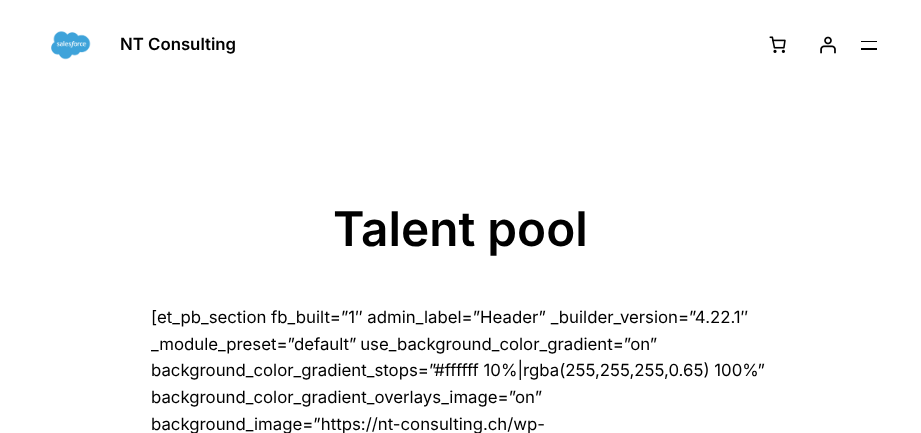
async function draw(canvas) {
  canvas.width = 921
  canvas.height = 433
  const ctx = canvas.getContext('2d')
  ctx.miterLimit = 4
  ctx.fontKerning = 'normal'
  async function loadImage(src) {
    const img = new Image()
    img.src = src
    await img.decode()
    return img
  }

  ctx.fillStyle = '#fff'
  ctx.fillRect(0, 0, 921, 433)
  ctx.drawImage(await loadImage('image0.png'), 51, 31, 40, 29)
  ctx.font = '600 16.8px Inter'
  ctx.fillStyle = '#000'
  ctx.fillText('NT Consulting', 120, 50)
  ctx.drawImage(await loadImage('image1.png'), 769, 36, 17, 17)
  ctx.drawImage(await loadImage('image2.png'), 820, 36, 16, 18)
  ctx.fillRect(861, 41, 16, 1)
  ctx.fillRect(861, 48, 16, 2)
  ctx.font = '600 47.75px Inter'
  ctx.fillText('Talent pool', 333, 246)
  ctx.font = '16.8px Inter'
  ctx.fillText('[et_pb_section fb_built=”1″ admin_label=”Header” _builder_version=”4.22.1″', 151, 323)
  ctx.wordSpacing = '-1px'
  ctx.fillText('_module_preset=”default” use_background_color_gradient=”on”', 151, 350)
  ctx.wordSpacing = '0px'
  ctx.fillText('background_color_gradient_stops=”#ffffff 10%|rgba(255,255,255,0.65) 100%”', 151, 376)
  ctx.fillText('background_color_gradient_overlays_image=”on”', 151, 403)
  ctx.fillText('background_image=”https://nt-consulting.ch/wp-', 151, 430)
}

draw(document.querySelector('canvas'))
